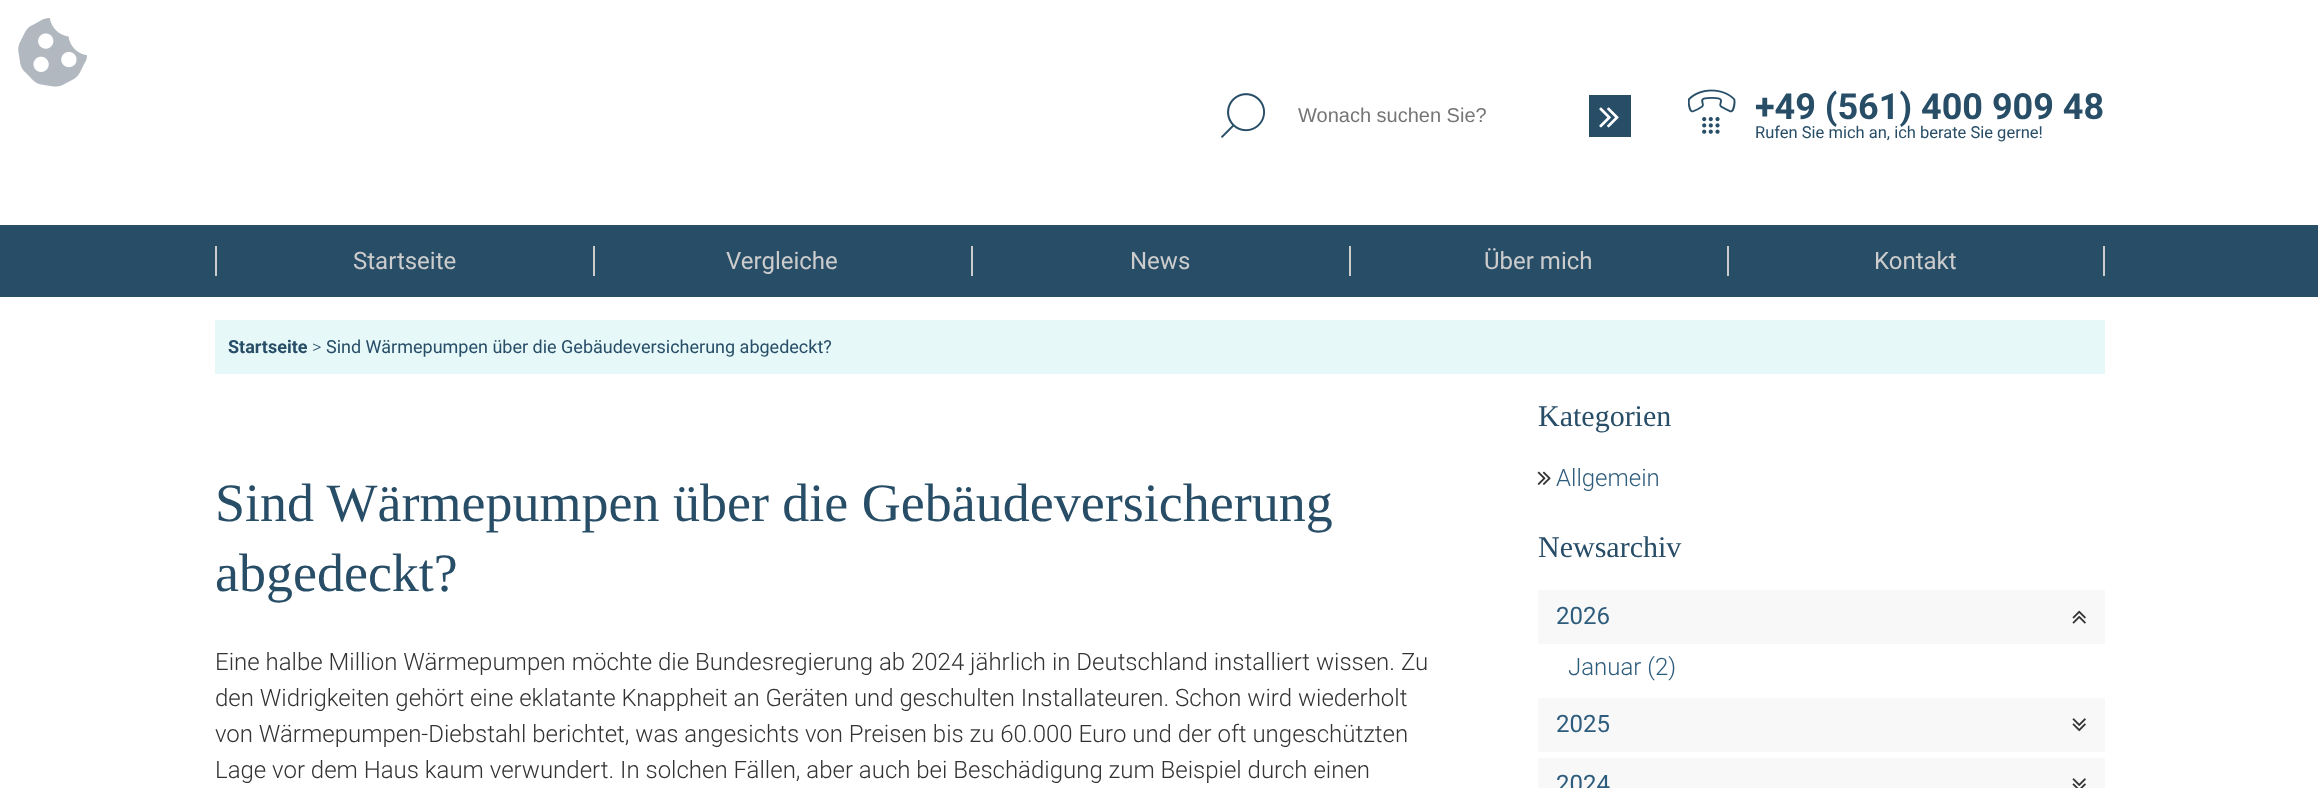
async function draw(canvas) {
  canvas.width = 2318
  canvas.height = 788
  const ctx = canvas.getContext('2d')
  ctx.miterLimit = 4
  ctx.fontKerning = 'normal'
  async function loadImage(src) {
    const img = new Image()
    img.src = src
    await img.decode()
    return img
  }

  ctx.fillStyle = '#fff'
  ctx.fillRect(0, 0, 2318, 788)
  ctx.drawImage(await loadImage('image0.png'), 18, 18, 69, 69)
  ctx.drawImage(await loadImage('image1.png'), 1221, 93, 44, 45)
  ctx.font = '20px Liberation Sans'
  ctx.fillStyle = '#757575'
  ctx.fillText('Wonach suchen Sie?', 1298, 122)
  ctx.fillStyle = '#274d67'
  ctx.fillRect(1589, 95, 42, 42)
  ctx.drawImage(await loadImage('image2.png'), 1599, 107, 20, 21)
  ctx.drawImage(await loadImage('image3.png'), 1688, 89, 48, 45)
  ctx.font = 'bold 36px Roboto'
  ctx.fillText('+49 (561) 400 909 48', 1755, 119)
  ctx.font = '16.5px Roboto'
  ctx.fillText('Rufen Sie mich an, ich berate Sie gerne!', 1755, 138)
  ctx.fillRect(0, 225, 2318, 72)
  ctx.fillStyle = '#ccc'
  ctx.fillRect(215, 246, 2, 30)
  ctx.font = '24px Roboto'
  ctx.fillText('Startseite', 353, 269)
  ctx.fillRect(593, 246, 2, 30)
  ctx.fillText('Vergleiche', 726, 269)
  ctx.fillRect(971, 246, 2, 30)
  ctx.fillText('News', 1130, 269)
  ctx.fillRect(1349, 246, 2, 30)
  ctx.fillText('Über mich', 1484, 269)
  ctx.fillRect(2103, 246, 2, 30)
  ctx.fillRect(1727, 246, 2, 30)
  ctx.fillText('Kontakt', 1874, 269)
  ctx.fillStyle = '#e6f8f8'
  ctx.fillRect(215, 320, 1890, 54)
  ctx.font = 'bold 18px Roboto'
  ctx.fillStyle = '#274d67'
  ctx.fillText('Startseite', 228, 353)
  ctx.font = '300 18px Roboto'
  ctx.fillText('>', 312, 353)
  ctx.font = '18px Roboto'
  ctx.fillText('Sind Wärmepumpen über die Gebäudeversicherung abgedeckt?', 326, 353)
  ctx.font = '54px Liberation Serif'
  ctx.fillText('Sind Wärmepumpen über die Gebäudeversicherung', 215, 521)
  ctx.fillText('abgedeckt?', 215, 591)
  ctx.font = '300 24px Roboto'
  ctx.fillStyle = '#333'
  ctx.fillText('Eine halbe Million Wärmepumpen möchte die Bundesregierung ab 2024 jährlich in Deutschland installiert wissen. Zu', 215, 670)
  ctx.fillText('den Widrigkeiten gehört eine eklatante Knappheit an Geräten und geschulten Installateuren. Schon wird wiederholt', 215, 706)
  ctx.fillText('von Wärmepumpen-Diebstahl berichtet, was angesichts von Preisen bis zu 60.000 Euro und der oft ungeschützten', 215, 742)
  ctx.fillText('Lage vor dem Haus kaum verwundert. In solchen Fällen, aber auch bei Beschädigung zum Beispiel durch einen', 215, 778)
  ctx.font = '30px Liberation Serif'
  ctx.fillStyle = '#274d67'
  ctx.fillText('Kategorien', 1538, 426)
  ctx.drawImage(await loadImage('image4.png'), 1537, 471, 14, 14)
  ctx.font = '300 24px Roboto'
  ctx.fillStyle = '#2e5c7c'
  ctx.fillText('Allgemein', 1556, 486)
  ctx.font = '30px Liberation Serif'
  ctx.fillStyle = '#274d67'
  ctx.fillText('Newsarchiv', 1538, 557)
  ctx.fillStyle = '#f8f8f8'
  ctx.fillRect(1538, 590, 567, 54)
  ctx.font = '24px Roboto'
  ctx.fillStyle = '#2e5c7c'
  ctx.fillText('2026', 1556, 624)
  ctx.drawImage(await loadImage('image5.png'), 2072, 610, 14, 14)
  ctx.font = '300 24px Roboto'
  ctx.fillText('Januar (2)', 1568, 675)
  ctx.fillStyle = '#f8f8f8'
  ctx.fillRect(1538, 698, 567, 54)
  ctx.font = '24px Roboto'
  ctx.fillStyle = '#2e5c7c'
  ctx.fillText('2025', 1556, 732)
  ctx.drawImage(await loadImage('image6.png'), 2072, 718, 14, 14)
  ctx.fillStyle = '#f8f8f8'
  ctx.fillRect(1538, 758, 567, 30)
  ctx.fillStyle = '#2e5c7c'
  ctx.fillText('2024', 1556, 792)
  ctx.drawImage(await loadImage('image7.png'), 2072, 778, 14, 10)
}

draw(document.querySelector('canvas'))
